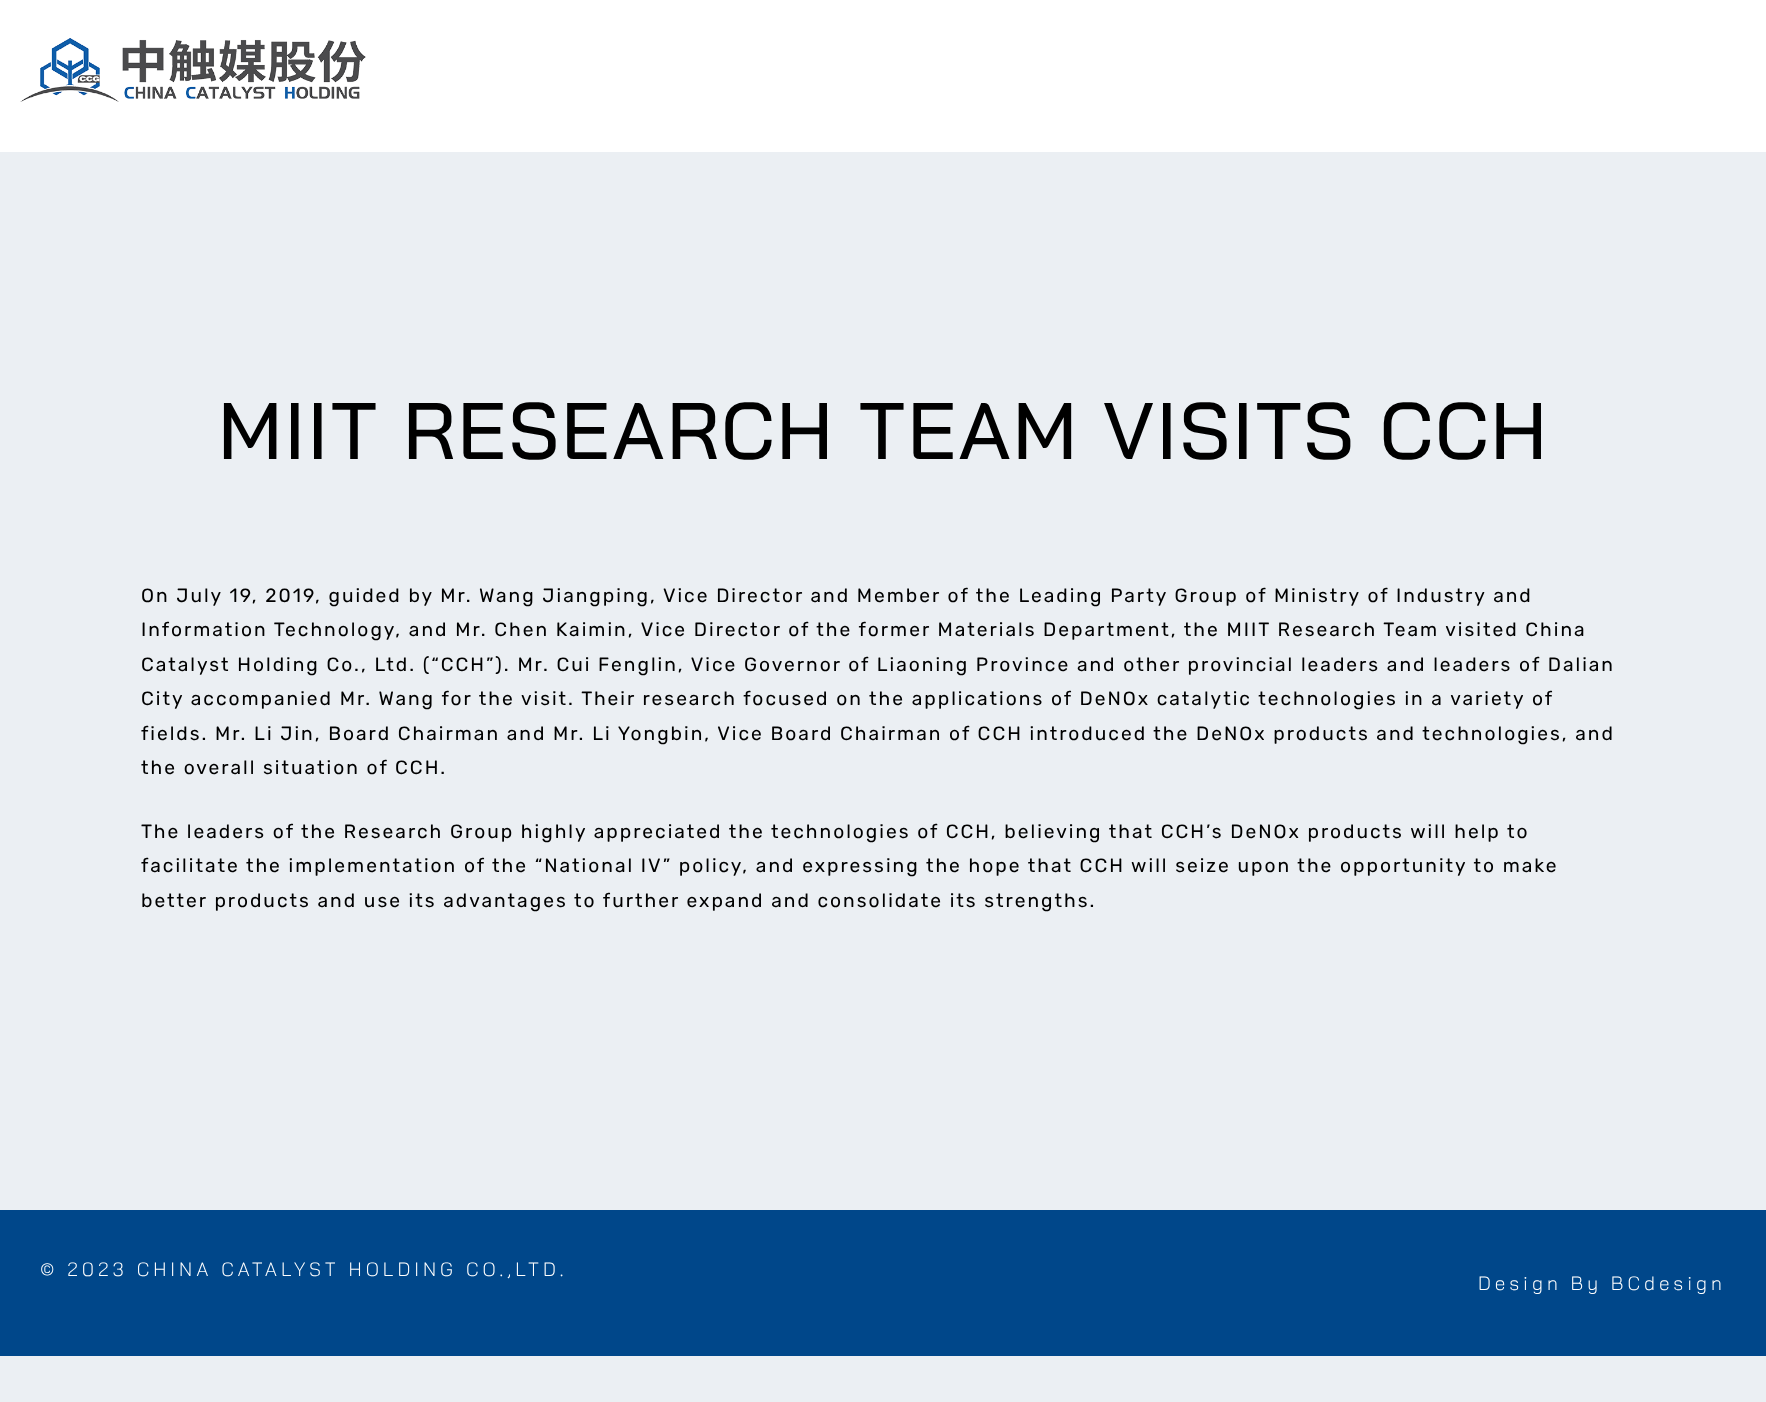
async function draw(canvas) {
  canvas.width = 1766
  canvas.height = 1402
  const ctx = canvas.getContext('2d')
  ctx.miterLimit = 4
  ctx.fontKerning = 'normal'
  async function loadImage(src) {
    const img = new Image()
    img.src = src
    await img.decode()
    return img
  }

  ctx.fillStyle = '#ebeff3'
  ctx.fillRect(0, 0, 1766, 1402)
  ctx.fillStyle = '#fff'
  ctx.fillRect(0, 0, 1766, 152)
  ctx.drawImage(await loadImage('image0.png'), 20, 38, 346, 64)
  ctx.letterSpacing = '2px'
  ctx.font = '500 80px Bai Jamjuree'
  ctx.fillStyle = '#000'
  ctx.fillText('MIIT RESEARCH TEAM VISITS CCH', 218, 459)
  ctx.font = '19.2px Rubik'
  ctx.fillText('On July 19, 2019, guided by Mr. Wang Jiangping, Vice Director and Member of the Leading Party Group of Ministry of Industry and', 141, 602)
  ctx.fillText('Information Technology, and Mr. Chen Kaimin, Vice Director of the former Materials Department, the MIIT Research Team visited China', 141, 636)
  ctx.fillText('Catalyst Holding Co., Ltd. (“CCH”). Mr. Cui Fenglin, Vice Governor of Liaoning Province and other provincial leaders and leaders of Dalian', 141, 671)
  ctx.fillText('City accompanied Mr. Wang for the visit. Their research focused on the applications of DeNOx catalytic technologies in a variety of', 141, 705)
  ctx.fillText('fields. Mr. Li Jin, Board Chairman and Mr. Li Yongbin, Vice Board Chairman of CCH introduced the DeNOx products and technologies, and', 141, 740)
  ctx.fillText('the overall situation of CCH.', 141, 774)
  ctx.fillText('The leaders of the Research Group highly appreciated the technologies of CCH, believing that CCH’s DeNOx products will help to', 141, 838)
  ctx.fillText('facilitate the implementation of the “National IV” policy, and expressing the hope that CCH will seize upon the opportunity to make', 141, 872)
  ctx.fillText('better products and use its advantages to further expand and consolidate its strengths.', 141, 907)
  ctx.fillStyle = '#00478a'
  ctx.fillRect(0, 1210, 1766, 146)
  ctx.letterSpacing = '4px'
  ctx.font = '300 19.2px Bai Jamjuree'
  ctx.fillStyle = '#fff'
  ctx.fillText('© 2023 CHINA CATALYST HOLDING CO.,LTD.', 40, 1276)
  ctx.fillText('Design By BCdesign', 1478, 1290)
}

draw(document.querySelector('canvas'))
